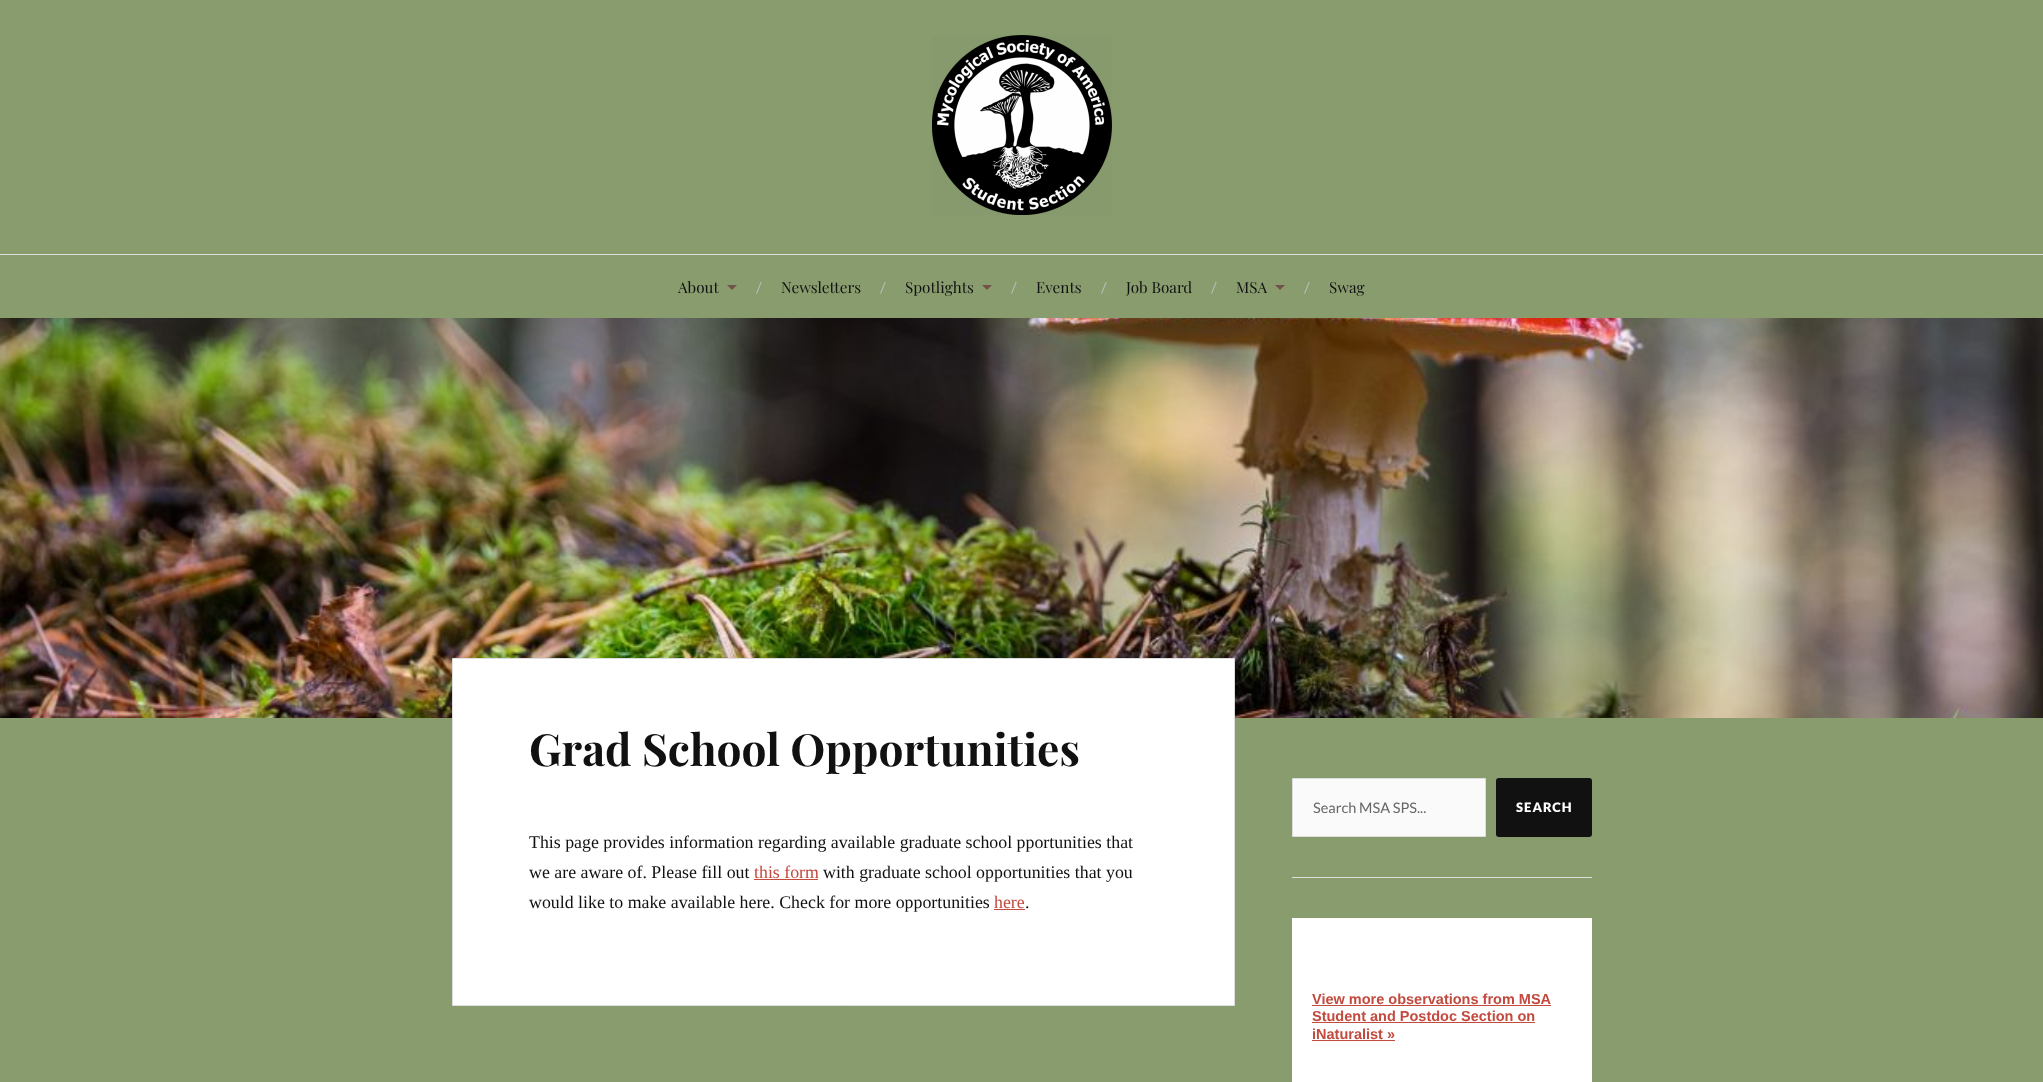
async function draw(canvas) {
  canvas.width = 2043
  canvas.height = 1082
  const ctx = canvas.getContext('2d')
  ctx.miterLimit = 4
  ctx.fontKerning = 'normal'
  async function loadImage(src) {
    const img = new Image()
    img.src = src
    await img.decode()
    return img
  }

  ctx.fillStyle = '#899c6e'
  ctx.fillRect(0, 0, 2043, 1082)
  ctx.drawImage(await loadImage('image0.png'), 932, 35, 180, 180)
  ctx.fillStyle = '#ddd'
  ctx.fillRect(0, 254, 2043, 1)
  ctx.font = '15.25px Playfair Display'
  ctx.fillStyle = '#111'
  ctx.fillText('About', 678, 293)
  ctx.fillStyle = '#72534a'
  ctx.beginPath()
  ctx.moveTo(727, 285)
  ctx.lineTo(737, 285)
  ctx.lineTo(732, 290)
  ctx.closePath()
  ctx.fill()
  ctx.font = '15px Lato'
  ctx.fillStyle = '#bbb'
  ctx.fillText('/', 756, 293)
  ctx.font = '15.25px Playfair Display'
  ctx.fillStyle = '#111'
  ctx.fillText('Newsletters', 781, 293)
  ctx.font = '15px Lato'
  ctx.fillStyle = '#bbb'
  ctx.fillText('/', 880, 293)
  ctx.font = '15.25px Playfair Display'
  ctx.fillStyle = '#111'
  ctx.fillText('Spotlights', 905, 293)
  ctx.fillStyle = '#72534a'
  ctx.beginPath()
  ctx.moveTo(982, 285)
  ctx.lineTo(992, 285)
  ctx.lineTo(987, 290)
  ctx.closePath()
  ctx.fill()
  ctx.font = '15px Lato'
  ctx.fillStyle = '#bbb'
  ctx.fillText('/', 1011, 293)
  ctx.font = '15.25px Playfair Display'
  ctx.fillStyle = '#111'
  ctx.fillText('Events', 1036, 293)
  ctx.font = '15px Lato'
  ctx.fillStyle = '#bbb'
  ctx.fillText('/', 1101, 293)
  ctx.font = '15.25px Playfair Display'
  ctx.fillStyle = '#111'
  ctx.fillText('Job Board', 1126, 293)
  ctx.font = '15px Lato'
  ctx.fillStyle = '#bbb'
  ctx.fillText('/', 1211, 293)
  ctx.font = '15.25px Playfair Display'
  ctx.fillStyle = '#111'
  ctx.fillText('MSA', 1236, 293)
  ctx.fillStyle = '#72534a'
  ctx.beginPath()
  ctx.moveTo(1275, 285)
  ctx.lineTo(1285, 285)
  ctx.lineTo(1280, 290)
  ctx.closePath()
  ctx.fill()
  ctx.font = '15px Lato'
  ctx.fillStyle = '#bbb'
  ctx.fillText('/', 1304, 293)
  ctx.font = '15.25px Playfair Display'
  ctx.fillStyle = '#111'
  ctx.fillText('Swag', 1329, 293)
  ctx.drawImage(await loadImage('image1.png'), 0, 318, 2043, 400)
  ctx.fillStyle = '#fff'
  ctx.beginPath()
  ctx.rect(452.5, 658.5, 782, 347)
  ctx.fill()
  ctx.strokeStyle = '#ddd'
  ctx.stroke()
  ctx.font = 'bold 44.25px Playfair Display'
  ctx.fillStyle = '#111'
  ctx.fillText('Grad School Opportunities', 529, 766)
  ctx.font = '17.85px Liberation Serif'
  ctx.fillText('This page provides information regarding available graduate school pportunities that', 529, 848)
  ctx.fillText('we are aware of. Please fill out', 529, 878)
  ctx.fillStyle = '#c24a3e'
  ctx.fillText('this form', 754, 878)
  ctx.fillRect(754, 879, 64, 1)
  ctx.fillStyle = '#111'
  ctx.fillText('with graduate school opportunities that you', 823, 878)
  ctx.fillText('would like to make available here. Check for more opportunities', 529, 908)
  ctx.fillStyle = '#c24a3e'
  ctx.fillText('here', 994, 908)
  ctx.fillRect(994, 909, 31, 1)
  ctx.fillStyle = '#111'
  ctx.fillText('.', 1025, 908)
  ctx.fillStyle = '#fafafa'
  ctx.beginPath()
  ctx.rect(1292.5, 778.5, 193, 58)
  ctx.fill()
  ctx.stroke()
  ctx.font = '14.5px Lato'
  ctx.fillStyle = '#666'
  ctx.fillText('Search MSA SPS...', 1313, 813)
  ctx.fillStyle = '#111'
  ctx.beginPath()
  ctx.roundRect(1496, 778, 96, 59, 3)
  ctx.fill()
  ctx.letterSpacing = '1px'
  ctx.font = '900 13px Lato'
  ctx.fillStyle = '#fff'
  ctx.fillText('SEARCH', 1516, 812)
  ctx.fillStyle = '#ddd'
  ctx.fillRect(1292, 877, 300, 1)
  ctx.fillStyle = '#fff'
  ctx.fillRect(1292, 918, 300, 164)
  ctx.letterSpacing = '0px'
  ctx.font = 'bold 14.5px Liberation Sans'
  ctx.fillStyle = '#c24a3e'
  ctx.fillText('View more observations from MSA', 1312, 1004)
  ctx.fillRect(1312, 1005, 239, 1)
  ctx.fillText('Student and Postdoc Section on', 1312, 1021)
  ctx.fillRect(1312, 1022, 223, 1)
  ctx.fillText('iNaturalist »', 1312, 1039)
  ctx.fillRect(1312, 1040, 83, 1)
}

draw(document.querySelector('canvas'))
